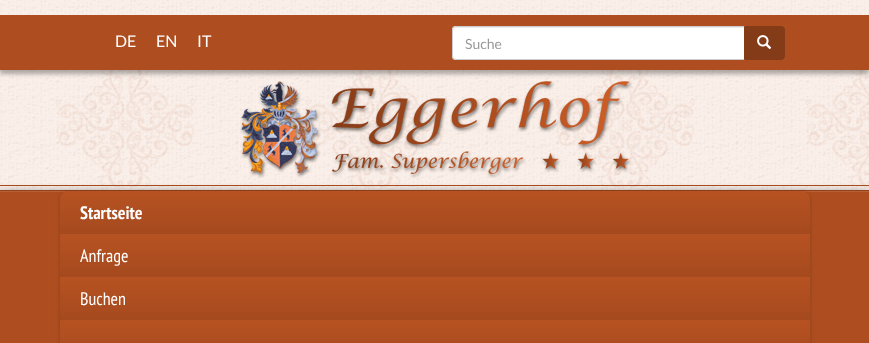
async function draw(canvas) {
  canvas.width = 869
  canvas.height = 343
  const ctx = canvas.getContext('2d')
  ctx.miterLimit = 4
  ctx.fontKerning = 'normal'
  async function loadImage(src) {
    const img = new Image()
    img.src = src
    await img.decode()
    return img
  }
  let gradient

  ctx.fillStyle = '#fff'
  ctx.fillRect(0, 0, 869, 343)
  ctx.drawImage(await loadImage('image0.png'), 0, 0, 869, 190)
  ctx.fillStyle = '#0000004d'
  ctx.filter = 'blur(2px)'
  ctx.beginPath()
  ctx.rect(0, 19, 869, 55)
  ctx.fill()
  ctx.filter = 'none'
  ctx.fillStyle = '#ae4e20'
  ctx.fillRect(0, 15, 869, 55)
  ctx.font = '16px Lato'
  ctx.fillStyle = '#fff'
  ctx.fillText('DE', 115, 47)
  ctx.fillText('EN', 156, 47)
  ctx.fillText('IT', 197, 47)
  ctx.beginPath()
  ctx.roundRect(452, 26, 293, 34, [4, 0, 0, 4])
  ctx.fill()
  ctx.fillStyle = '#ececec'
  ctx.beginPath()
  ctx.moveTo(456, 28)
  ctx.lineTo(744, 28)
  ctx.lineTo(744, 27)
  ctx.lineTo(456, 27)
  ctx.bezierCurveTo(454, 27, 453, 29, 453, 31)
  ctx.bezierCurveTo(453, 29, 454, 28, 456, 28)
  ctx.closePath()
  ctx.fill()
  ctx.beginPath()
  ctx.roundRect(452.5, 26.5, 292, 33, [3.5, 0, 0, 3.5])
  ctx.strokeStyle = '#ccc'
  ctx.stroke()
  ctx.font = '14px Lato'
  ctx.fillStyle = '#999'
  ctx.fillText('Suche', 465, 49)
  ctx.fillStyle = '#833b18'
  ctx.beginPath()
  ctx.roundRect(744.5, 26.5, 40, 33, [0, 3.5, 3.5, 0])
  ctx.fill()
  ctx.strokeStyle = '#833b18'
  ctx.stroke()
  ctx.drawImage(await loadImage('image1.png'), 757, 35, 15, 14)
  ctx.drawImage(await loadImage('image2.png'), 240, 81, 392, 97)
  ctx.fillStyle = '#ae4e20'
  ctx.fillRect(0, 185, 869, 1)
  ctx.fillStyle = '#00000099'
  ctx.filter = 'blur(5.5px)'
  ctx.beginPath()
  ctx.rect(0, 194, 869, 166)
  ctx.fill()
  ctx.filter = 'none'
  ctx.fillStyle = '#ae4e20'
  ctx.fillRect(0, 192, 869, 151)
  ctx.fillStyle = '#b66036'
  ctx.fillRect(0, 191, 869, 1)
  ctx.fillStyle = '#92411b'
  ctx.fillRect(0, 190, 869, 1)
  ctx.fillStyle = '#00000033'
  ctx.filter = 'blur(2px)'
  ctx.beginPath()
  ctx.roundRect(60, 192, 750, 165, 8)
  ctx.fill()
  ctx.filter = 'none'
  gradient = ctx.createLinearGradient(435, 191, 435, 234)
  gradient.addColorStop(0, '#b75222')
  gradient.addColorStop(1, '#a54a1e')
  ctx.fillStyle = gradient
  ctx.beginPath()
  ctx.roundRect(60, 191, 750, 43, [8, 8, 0, 0])
  ctx.fill()
  ctx.font = 'bold 18px PT Sans Narrow'
  ctx.fillStyle = '#fff'
  ctx.fillText('Startseite', 80, 219)
  gradient = ctx.createLinearGradient(435, 234, 435, 277)
  gradient.addColorStop(0, '#b75222')
  gradient.addColorStop(1, '#a54a1e')
  ctx.fillStyle = gradient
  ctx.fillRect(60, 234, 750, 43)
  ctx.font = '18px PT Sans Narrow'
  ctx.fillStyle = '#fff'
  ctx.fillText('Anfrage', 80, 262)
  gradient = ctx.createLinearGradient(435, 277, 435, 320)
  gradient.addColorStop(0, '#b75222')
  gradient.addColorStop(1, '#a54a1e')
  ctx.fillStyle = gradient
  ctx.fillRect(60, 277, 750, 43)
  ctx.fillStyle = '#fff'
  ctx.fillText('Buchen', 80, 305)
  gradient = ctx.createLinearGradient(435, 320, 435, 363)
  gradient.addColorStop(0, '#b75222')
  gradient.addColorStop(1, '#a54a1e')
  ctx.fillStyle = gradient
  ctx.fillRect(60, 320, 750, 23)
}

draw(document.querySelector('canvas'))
